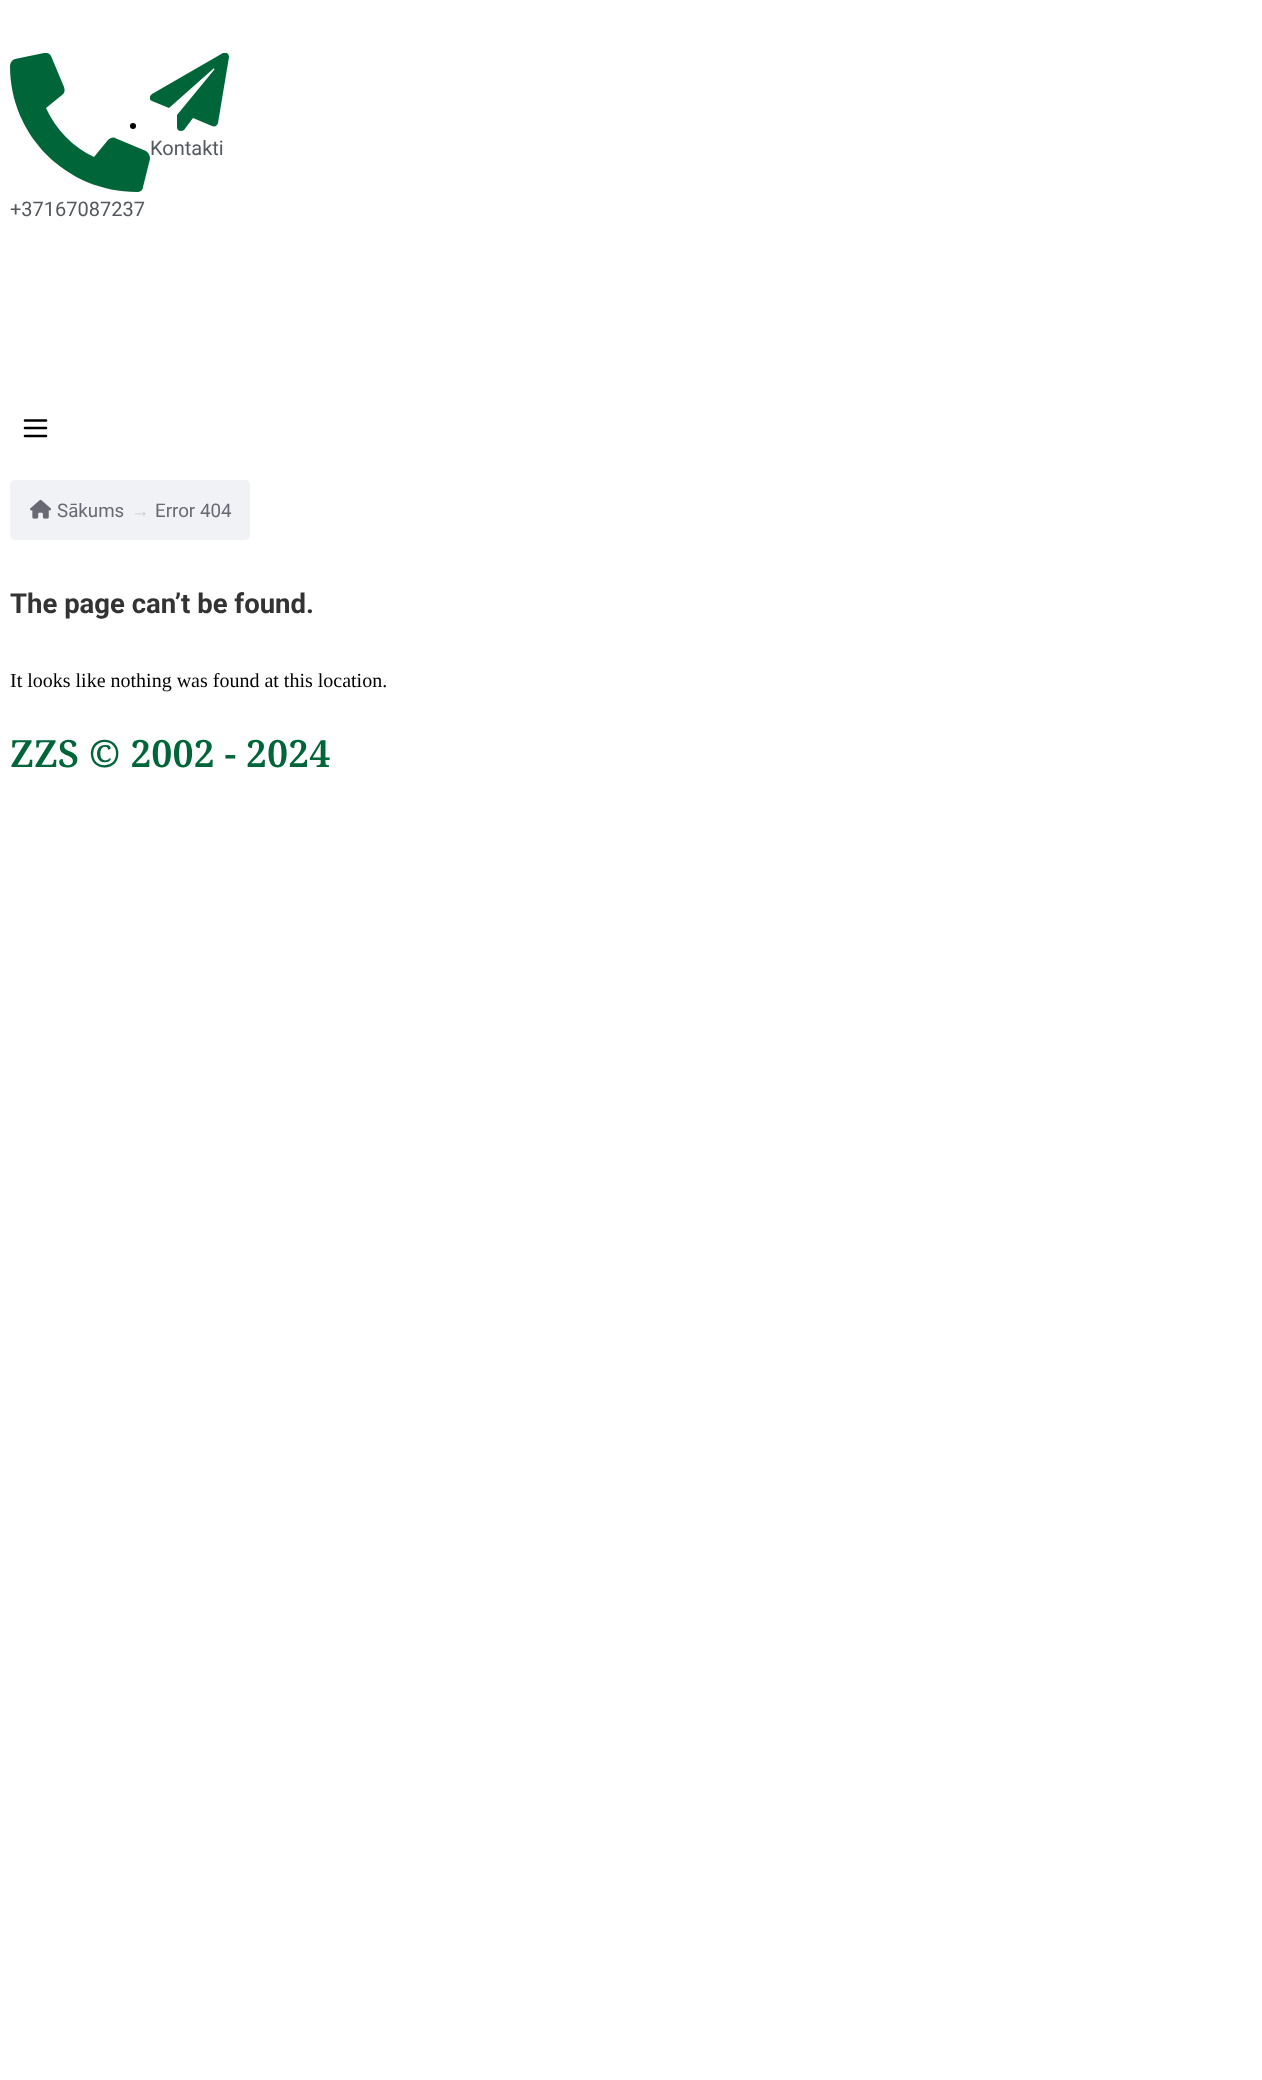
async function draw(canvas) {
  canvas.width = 1262
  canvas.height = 2080
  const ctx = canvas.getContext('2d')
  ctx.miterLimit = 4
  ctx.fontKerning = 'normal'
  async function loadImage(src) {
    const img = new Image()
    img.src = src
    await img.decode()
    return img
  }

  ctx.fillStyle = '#fff'
  ctx.fillRect(0, 0, 1262, 2080)
  ctx.fillStyle = '#000'
  ctx.beginPath()
  ctx.arc(133, 126, 3, 0, 2 * Math.PI)
  ctx.fill()
  ctx.font = '20px Roboto'
  ctx.fillStyle = '#54595f'
  ctx.fillText('Kontakti', 150, 155)
  ctx.save()
  ctx.beginPath()
  ctx.rect(150, 53, 79, 78)
  ctx.clip()
  ctx.fillStyle = '#006538'
  ctx.beginPath()
  ctx.moveTo(223, 53)
  ctx.lineTo(152, 94)
  ctx.bezierCurveTo(149, 96, 149, 100, 152, 101)
  ctx.lineTo(169, 108)
  ctx.lineTo(213, 69)
  ctx.bezierCurveTo(214, 68, 215, 69, 214, 70)
  ctx.lineTo(177, 115)
  ctx.lineTo(177, 127)
  ctx.bezierCurveTo(177, 131, 181, 132, 184, 130)
  ctx.lineTo(193, 118)
  ctx.lineTo(212, 126)
  ctx.bezierCurveTo(215, 127, 217, 126, 218, 123)
  ctx.lineTo(229, 57)
  ctx.bezierCurveTo(229, 54, 226, 51, 223, 53)
  ctx.closePath()
  ctx.fill()
  ctx.restore()
  ctx.fillText('+37167087237', 10, 216)
  ctx.save()
  ctx.beginPath()
  ctx.rect(10, 53, 140, 140)
  ctx.clip()
  ctx.fillStyle = '#006538'
  ctx.beginPath()
  ctx.moveTo(146, 151)
  ctx.lineTo(115, 138)
  ctx.bezierCurveTo(113, 137, 110, 138, 108, 140)
  ctx.lineTo(94, 157)
  ctx.bezierCurveTo(73, 147, 56, 130, 46, 108)
  ctx.lineTo(62, 95)
  ctx.bezierCurveTo(65, 93, 65, 90, 64, 87)
  ctx.lineTo(51, 56)
  ctx.bezierCurveTo(50, 54, 47, 52, 44, 53)
  ctx.lineTo(15, 59)
  ctx.bezierCurveTo(12, 60, 10, 63, 10, 66)
  ctx.bezierCurveTo(10, 136, 67, 192, 137, 192)
  ctx.bezierCurveTo(140, 192, 143, 190, 143, 187)
  ctx.lineTo(150, 159)
  ctx.bezierCurveTo(150, 156, 149, 153, 146, 151)
  ctx.closePath()
  ctx.fill()
  ctx.restore()
  ctx.beginPath()
  ctx.moveTo(25, 436)
  ctx.lineTo(46, 436)
  ctx.moveTo(25, 428)
  ctx.lineTo(46, 428)
  ctx.moveTo(25, 420.5)
  ctx.lineTo(46, 420.5)
  ctx.strokeStyle = '#000'
  ctx.lineWidth = 2.6
  ctx.lineCap = 'round'
  ctx.stroke()
  ctx.fillStyle = '#f0f2f5'
  ctx.beginPath()
  ctx.roundRect(10, 480, 240, 60, 5)
  ctx.fill()
  ctx.drawImage(await loadImage('image0.png'), 30, 499, 22, 20)
  ctx.font = '18.75px Roboto'
  ctx.fillStyle = '#696973'
  ctx.fillText('Sākums', 57, 517)
  ctx.font = '18.75px Liberation Sans'
  ctx.fillStyle = '#ccc'
  ctx.fillText('→', 131, 517)
  ctx.font = '18.75px Roboto'
  ctx.fillStyle = '#696973'
  ctx.fillText('Error 404', 155, 517)
  ctx.font = 'bold 27.5px Roboto'
  ctx.fillStyle = '#333'
  ctx.fillText('The page can’t be found.', 10, 613)
  ctx.font = '20px Liberation Serif'
  ctx.fillStyle = '#000'
  ctx.fillText('It looks like nothing was found at this location.', 10, 687)
  ctx.font = '600 37.5px Noto Serif'
  ctx.fillStyle = '#006538'
  ctx.fillText('ZZS © 2002 - 2024', 10, 767)
}

draw(document.querySelector('canvas'))
